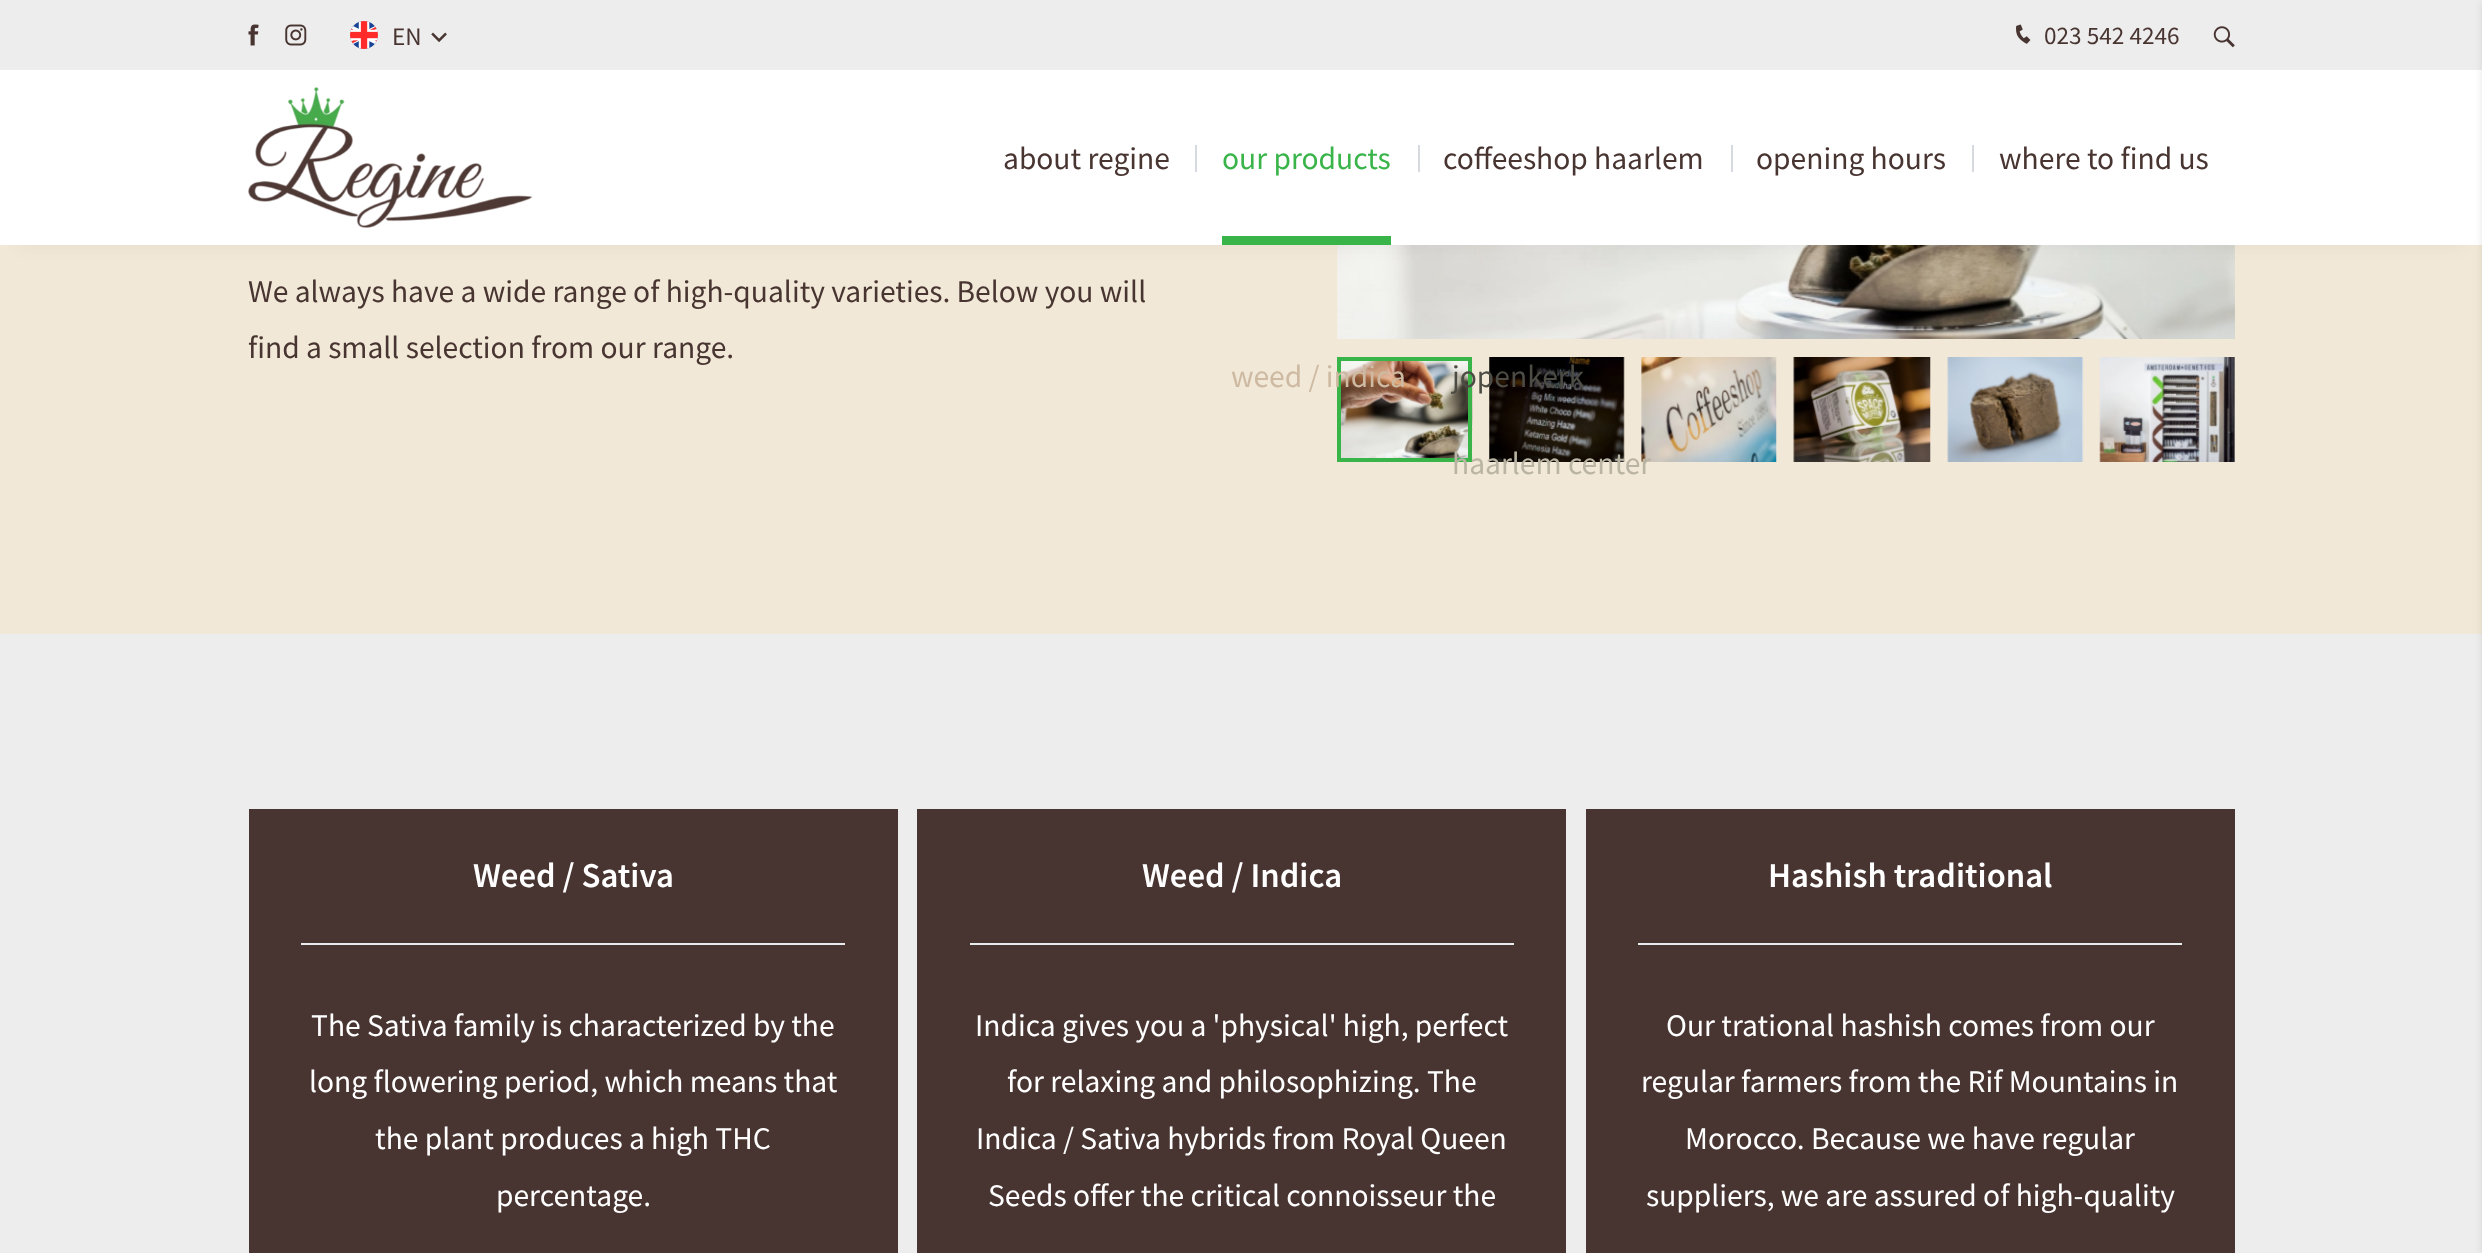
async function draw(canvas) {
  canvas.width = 2482
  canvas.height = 1253
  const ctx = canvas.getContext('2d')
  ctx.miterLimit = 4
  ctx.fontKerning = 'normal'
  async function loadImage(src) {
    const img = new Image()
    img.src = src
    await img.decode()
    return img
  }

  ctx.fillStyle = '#f1e8d7'
  ctx.fillRect(0, 0, 2482, 1253)
  ctx.fillStyle = '#eeeded'
  ctx.fillRect(0, 0, 2482, 70)
  ctx.drawImage(await loadImage('image0.png'), 248, 24, 11, 22)
  ctx.drawImage(await loadImage('image1.png'), 285, 24, 22, 22)
  ctx.drawImage(await loadImage('image2.png'), 350, 21, 28, 28)
  ctx.font = '25.25px Source Sans Pro'
  ctx.fillStyle = '#483531'
  ctx.fillText('EN', 392, 45)
  ctx.drawImage(await loadImage('image3.png'), 431, 32, 16, 11)
  ctx.drawImage(await loadImage('image4.png'), 2016, 24, 15, 20)
  ctx.fillText('023 542 4246', 2044, 44)
  ctx.drawImage(await loadImage('image5.png'), 2213, 26, 22, 22)
  ctx.drawImage(await loadImage('image6.png'), 1337, 245, 898, 94)
  ctx.fillStyle = '#0000000d'
  ctx.filter = 'blur(9px)'
  ctx.beginPath()
  ctx.rect(18, 105, 2448, 140)
  ctx.fill()
  ctx.filter = 'none'
  ctx.fillStyle = '#fff'
  ctx.fillRect(0, 70, 2482, 175)
  ctx.fillStyle = '#eeeded'
  ctx.fillRect(0, 634, 2482, 619)
  ctx.fillStyle = '#0000001f'
  ctx.filter = 'blur(4.5px)'
  ctx.beginPath()
  ctx.rect(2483, 2, 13, 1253)
  ctx.fill()
  ctx.filter = 'none'
  ctx.font = '31.5px Source Sans Pro'
  ctx.fillStyle = '#483531'
  ctx.fillText('We always have a wide range of high-quality varieties. Below you will', 248, 302)
  ctx.fillText('find a small selection from our range.', 248, 358)
  ctx.drawImage(await loadImage('image7.png'), 1341, 357, 132, 105)
  ctx.strokeStyle = '#38b449'
  ctx.lineWidth = 4
  ctx.strokeRect(1339, 359, 131, 101)
  ctx.drawImage(await loadImage('image8.png'), 1489, 357, 136, 105)
  ctx.drawImage(await loadImage('image9.png'), 1641, 357, 136, 105)
  ctx.drawImage(await loadImage('image10.png'), 1793, 357, 138, 105)
  ctx.fillStyle = '#e5eaf1'
  ctx.fillRect(1948, 357, 135, 105)
  ctx.drawImage(await loadImage('image11.png'), 1947, 357, 137, 105)
  ctx.fillRect(2100, 357, 135, 105)
  ctx.drawImage(await loadImage('image12.png'), 2099, 357, 136, 105)
  ctx.drawImage(await loadImage('image13.png'), 248, 87, 285, 141)
  ctx.fillStyle = '#483531'
  ctx.fillText('about regine', 1003, 169)
  ctx.fillStyle = '#d6dade'
  ctx.fillRect(1195, 145, 2, 27)
  ctx.fillStyle = '#38b449'
  ctx.fillText('our products', 1222, 169)
  ctx.fillRect(1222, 236, 169, 9)
  ctx.fillStyle = '#cebaa2'
  ctx.fillText('weed / indica', 1231, 387)
  ctx.fillStyle = '#d6dade'
  ctx.fillRect(1418, 145, 2, 27)
  ctx.fillStyle = '#483531'
  ctx.fillText('coffeeshop haarlem', 1443, 169)
  ctx.fillStyle = '#4c4b44'
  ctx.fillText('jopenkerk', 1452, 387)
  ctx.fillStyle = '#b9b4a3'
  ctx.fillText('haarlem center', 1452, 474)
  ctx.fillStyle = '#d6dade'
  ctx.fillRect(1731, 145, 2, 27)
  ctx.fillStyle = '#483531'
  ctx.fillText('opening hours', 1756, 169)
  ctx.fillStyle = '#d6dade'
  ctx.fillRect(1972, 145, 2, 27)
  ctx.fillStyle = '#483531'
  ctx.fillText('where to find us', 1999, 169)
  ctx.fillRect(249, 809, 649, 444)
  ctx.font = '600 34.75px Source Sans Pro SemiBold'
  ctx.fillStyle = '#fff'
  ctx.fillText('Weed / Sativa', 473, 887)
  ctx.fillStyle = '#e7ebee'
  ctx.fillRect(301, 943, 544, 2)
  ctx.font = '31.5px Source Sans Pro'
  ctx.fillStyle = '#fff'
  ctx.fillText('The Sativa family is characterized by the', 311, 1036)
  ctx.fillText('long flowering period, which means that', 309, 1092)
  ctx.fillText('the plant produces a high THC', 375, 1149)
  ctx.fillText('percentage.', 496, 1206)
  ctx.fillStyle = '#483531'
  ctx.fillRect(917, 809, 649, 444)
  ctx.font = '600 34.75px Source Sans Pro SemiBold'
  ctx.fillStyle = '#fff'
  ctx.fillText('Weed / Indica', 1142, 887)
  ctx.fillStyle = '#e7ebee'
  ctx.fillRect(970, 943, 544, 2)
  ctx.font = '31.5px Source Sans Pro'
  ctx.fillStyle = '#fff'
  ctx.fillText('Indica gives you a \'physical\' high, perfect', 975, 1036)
  ctx.fillText('for relaxing and philosophizing. The', 1007, 1092)
  ctx.fillText('Indica / Sativa hybrids from Royal Queen', 976, 1149)
  ctx.fillText('Seeds offer the critical connoisseur the', 988, 1206)
  ctx.fillStyle = '#483531'
  ctx.fillRect(1586, 809, 649, 444)
  ctx.font = '600 34.75px Source Sans Pro SemiBold'
  ctx.fillStyle = '#fff'
  ctx.fillText('Hashish traditional', 1768, 887)
  ctx.fillStyle = '#e7ebee'
  ctx.fillRect(1638, 943, 544, 2)
  ctx.font = '31.5px Source Sans Pro'
  ctx.fillStyle = '#fff'
  ctx.fillText('Our trational hashish comes from our', 1666, 1036)
  ctx.fillText('regular farmers from the Rif Mountains in', 1641, 1092)
  ctx.fillText('Morocco. Because we have regular', 1685, 1149)
  ctx.fillText('suppliers, we are assured of high-quality', 1646, 1206)
}

draw(document.querySelector('canvas'))
